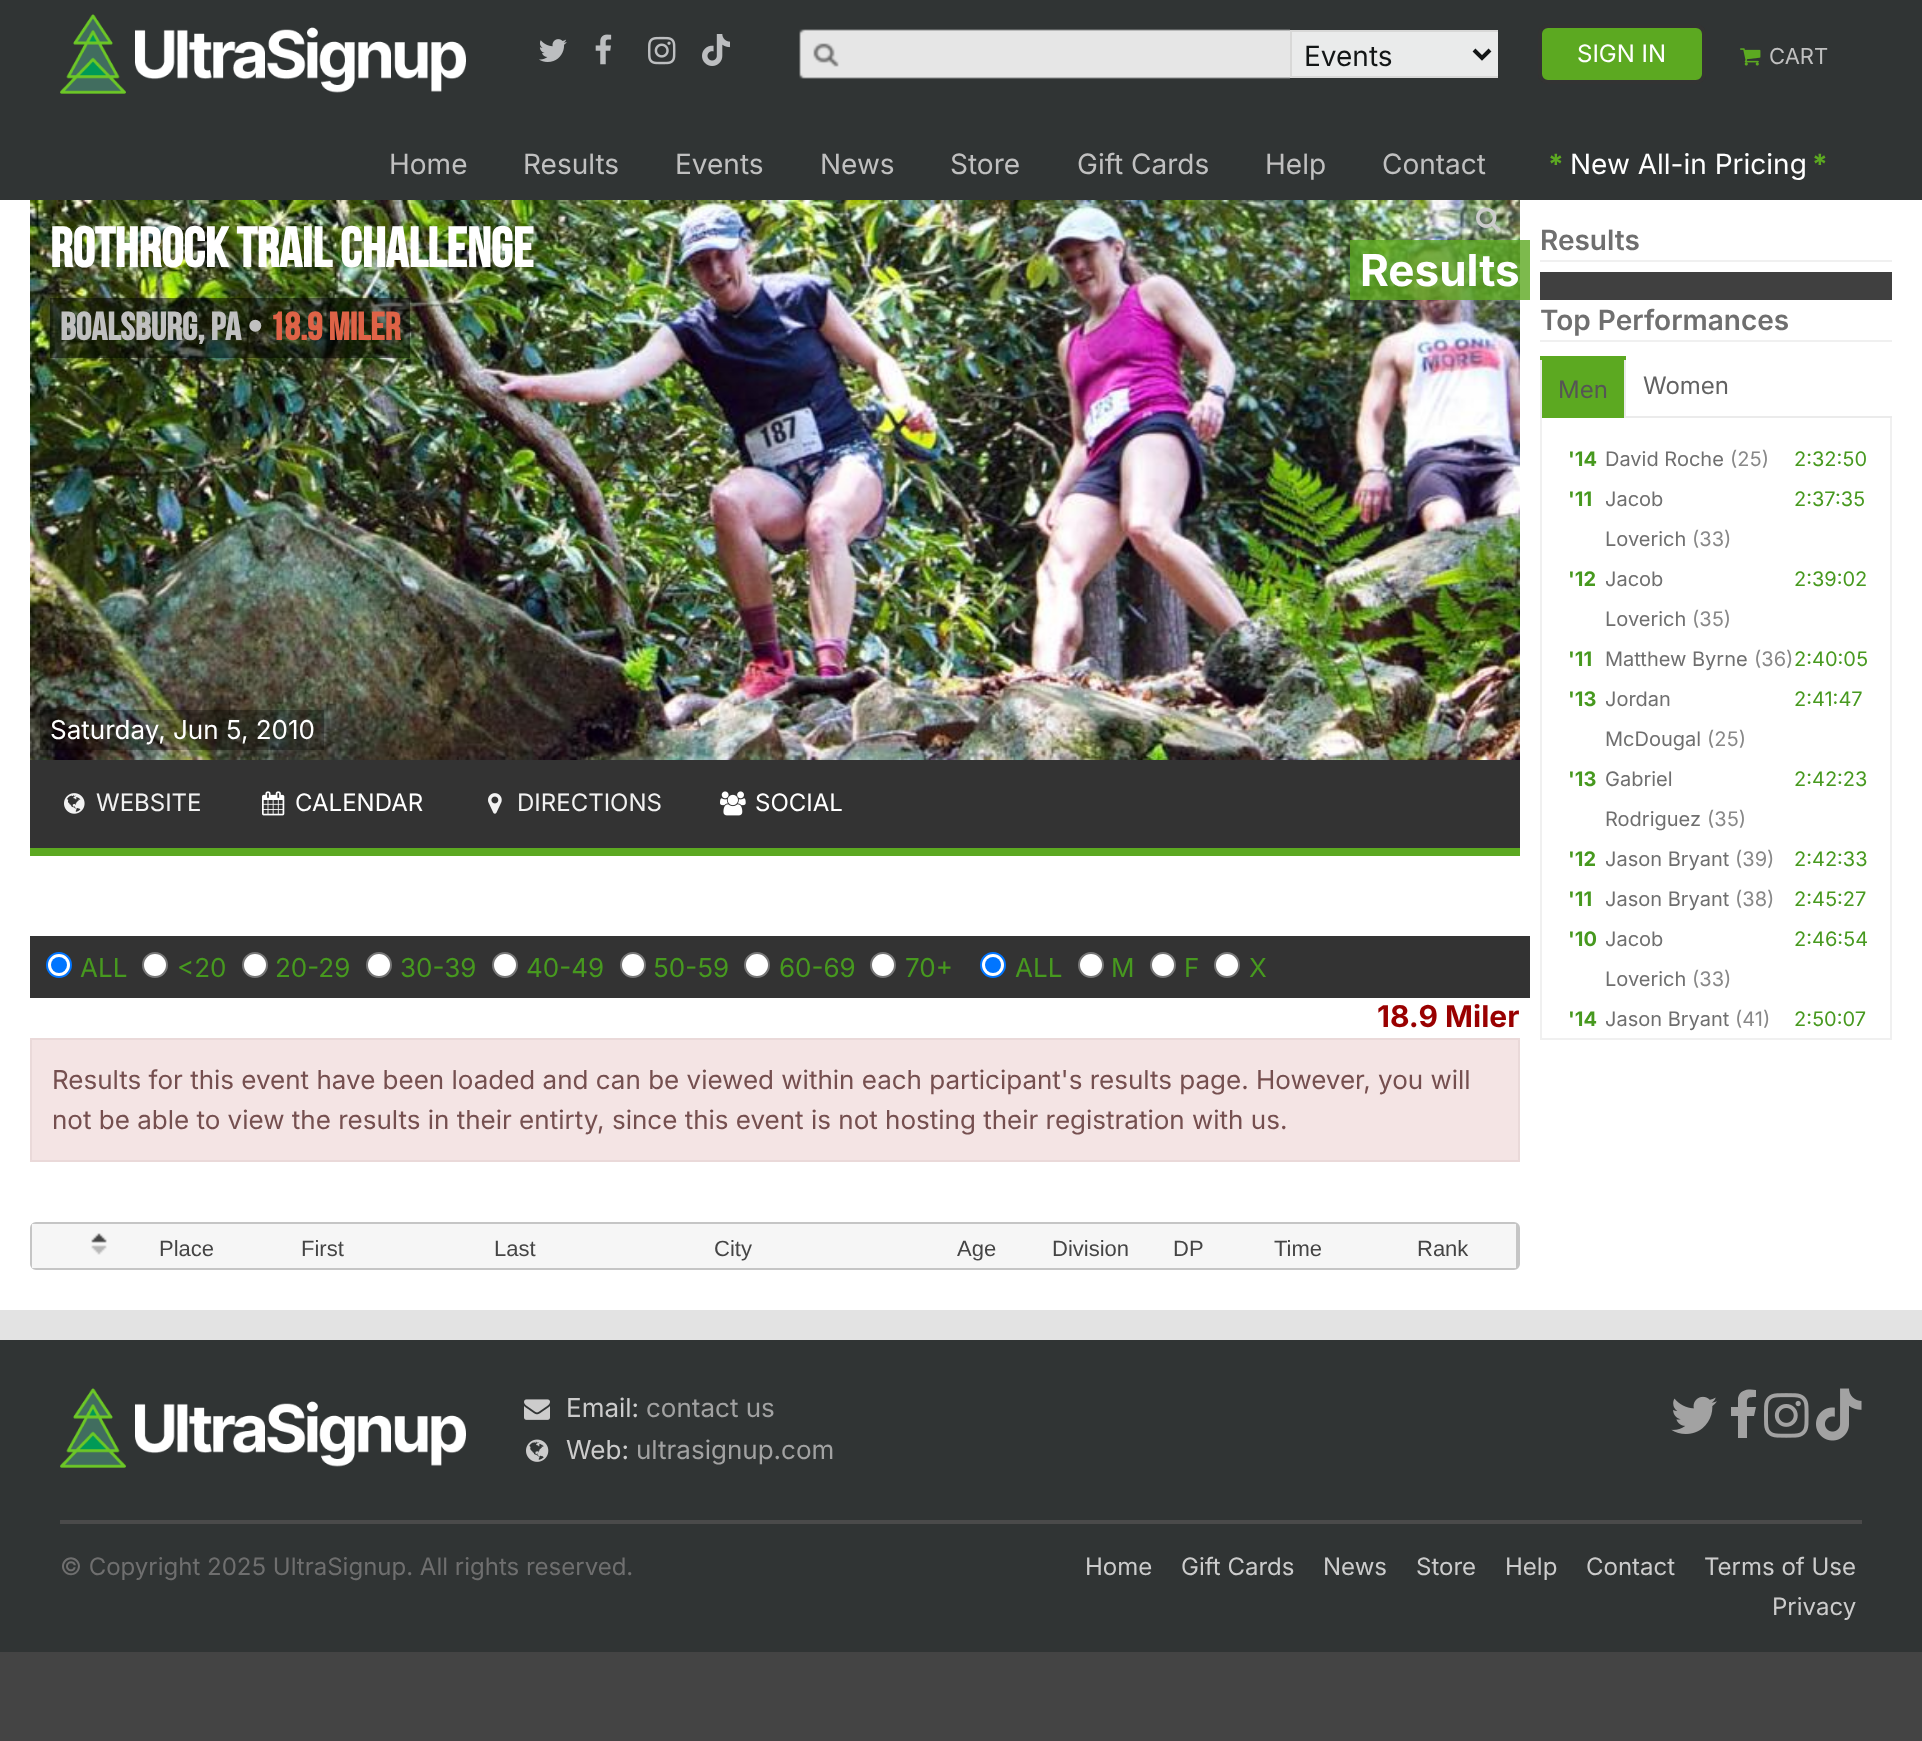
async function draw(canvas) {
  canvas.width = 1922
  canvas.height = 1741
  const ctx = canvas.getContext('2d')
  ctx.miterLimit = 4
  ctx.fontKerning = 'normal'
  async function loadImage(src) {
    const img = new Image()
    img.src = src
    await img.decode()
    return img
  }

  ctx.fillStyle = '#444'
  ctx.fillRect(0, 0, 1922, 1741)
  ctx.fillStyle = '#fff'
  ctx.fillRect(0, 200, 1922, 1110)
  ctx.fillStyle = '#303434'
  ctx.fillRect(0, 0, 1922, 200)
  ctx.drawImage(await loadImage('image0.png'), 60, 14, 406, 80)
  ctx.drawImage(await loadImage('image1.png'), 539, 39, 28, 23)
  ctx.drawImage(await loadImage('image2.png'), 595, 34, 17, 31)
  ctx.drawImage(await loadImage('image3.png'), 648, 36, 28, 29)
  ctx.drawImage(await loadImage('image4.png'), 702, 34, 28, 32)
  ctx.drawImage(await loadImage('image5.png'), 799, 29, 491, 50)
  ctx.fillStyle = '#eaebeb'
  ctx.fillRect(1292, 32, 206, 44)
  ctx.save()
  ctx.beginPath()
  ctx.rect(1270, 26, 228, 54)
  ctx.clip()
  ctx.strokeStyle = '#d8d8d7'
  ctx.lineWidth = 2
  ctx.strokeRect(1291, 31, 208, 46)
  ctx.restore()
  ctx.beginPath()
  ctx.moveTo(1474, 50)
  ctx.lineTo(1482, 58)
  ctx.lineTo(1490, 50)
  ctx.strokeStyle = '#131616'
  ctx.lineWidth = 4
  ctx.stroke()
  ctx.font = '28px Inter'
  ctx.fillStyle = '#131616'
  ctx.fillText('Events', 1304, 66)
  ctx.fillStyle = '#5ca921'
  ctx.beginPath()
  ctx.roundRect(1540, 26, 164, 56, 8)
  ctx.fill()
  ctx.strokeStyle = '#333'
  ctx.stroke()
  ctx.font = '24px Inter'
  ctx.fillStyle = '#fff'
  ctx.fillText('SIGN IN', 1577, 62)
  ctx.drawImage(await loadImage('image6.png'), 1740, 48, 21, 18)
  ctx.font = '22px Inter'
  ctx.fillStyle = '#c0c0c0'
  ctx.fillText('CART', 1769, 64)
  ctx.font = '28px Inter'
  ctx.fillText('Home', 389, 174)
  ctx.fillText('Results', 523, 174)
  ctx.fillText('Events', 675, 174)
  ctx.fillText('News', 820, 174)
  ctx.fillText('Store', 950, 174)
  ctx.fillText('Gift Cards', 1077, 174)
  ctx.fillText('Help', 1265, 174)
  ctx.fillText('Contact', 1382, 174)
  ctx.font = 'bold 28px Inter'
  ctx.fillStyle = '#5ca921'
  ctx.fillText('*', 1548, 174)
  ctx.font = '28px Inter'
  ctx.fillStyle = '#fff'
  ctx.fillText('New All-in Pricing', 1570, 174)
  ctx.font = 'bold 28px Inter'
  ctx.fillStyle = '#5ca921'
  ctx.fillText('*', 1812, 174)
  ctx.drawImage(await loadImage('image7.png'), 30, 200, 1490, 560)
  ctx.font = 'bold 56px Bebas Neue'
  ctx.fillStyle = '#fff'
  ctx.fillText('Rothrock Trail Challenge', 50, 267)
  ctx.fillStyle = '#00000080'
  ctx.fillRect(50, 298, 360, 60)
  ctx.font = 'bold 39px Bebas Neue'
  ctx.fillStyle = '#c0c0c0'
  ctx.fillText('Boalsburg, PA •', 60, 340)
  ctx.fillStyle = '#df6347'
  ctx.fillText('18.9 Miler', 269, 340)
  ctx.drawImage(await loadImage('image8.png'), 1476, 207, 24, 25)
  ctx.fillStyle = '#5ca921cc'
  ctx.fillRect(1350, 240, 180, 60)
  ctx.font = 'bold 44px Inter'
  ctx.fillStyle = '#fff'
  ctx.fillText('Results', 1360, 286)
  ctx.fillStyle = '#0000004d'
  ctx.fillRect(40, 710, 284, 40)
  ctx.font = '26px Inter'
  ctx.fillStyle = '#fff'
  ctx.fillText('Saturday, Jun 5, 2010', 50, 739)
  ctx.fillStyle = '#333'
  ctx.fillRect(30, 760, 1490, 88)
  ctx.fillStyle = '#5ca921'
  ctx.fillRect(30, 848, 1490, 8)
  ctx.drawImage(await loadImage('image9.png'), 64, 793, 21, 21)
  ctx.font = '24px Inter'
  ctx.fillStyle = '#f2f2f2'
  ctx.fillText('WEBSITE', 96, 811)
  ctx.drawImage(await loadImage('image10.png'), 262, 791, 23, 25)
  ctx.fillStyle = '#fff'
  ctx.fillText('CALENDAR', 295, 811)
  ctx.drawImage(await loadImage('image11.png'), 488, 793, 14, 21)
  ctx.fillStyle = '#f2f2f2'
  ctx.fillText('DIRECTIONS', 517, 811)
  ctx.drawImage(await loadImage('image12.png'), 720, 791, 26, 25)
  ctx.fillStyle = '#fff'
  ctx.fillText('SOCIAL', 755, 811)
  ctx.fillStyle = '#333'
  ctx.fillRect(30, 936, 1500, 62)
  ctx.fillStyle = '#fff'
  ctx.beginPath()
  ctx.arc(59, 965, 12, 0, 2 * Math.PI)
  ctx.fill()
  ctx.strokeStyle = '#0075ff'
  ctx.lineWidth = 2
  ctx.stroke()
  ctx.fillStyle = '#0075ff'
  ctx.beginPath()
  ctx.arc(59, 965, 8, 0, 2 * Math.PI)
  ctx.fill()
  ctx.font = '26px Inter'
  ctx.fillStyle = '#47991f'
  ctx.fillText('ALL', 80, 977)
  ctx.fillStyle = '#fff'
  ctx.beginPath()
  ctx.arc(155, 965, 12, 0, 2 * Math.PI)
  ctx.fill()
  ctx.strokeStyle = '#767676'
  ctx.stroke()
  ctx.fillStyle = '#47991f'
  ctx.fillText('<20', 177, 977)
  ctx.fillStyle = '#fff'
  ctx.beginPath()
  ctx.arc(255, 965, 12, 0, 2 * Math.PI)
  ctx.fill()
  ctx.stroke()
  ctx.fillStyle = '#47991f'
  ctx.fillText('20-29', 275, 977)
  ctx.fillStyle = '#fff'
  ctx.beginPath()
  ctx.arc(379, 965, 12, 0, 2 * Math.PI)
  ctx.fill()
  ctx.stroke()
  ctx.fillStyle = '#47991f'
  ctx.fillText('30-39', 400, 977)
  ctx.fillStyle = '#fff'
  ctx.beginPath()
  ctx.arc(505, 965, 12, 0, 2 * Math.PI)
  ctx.fill()
  ctx.stroke()
  ctx.fillStyle = '#47991f'
  ctx.fillText('40-49', 526, 977)
  ctx.fillStyle = '#fff'
  ctx.beginPath()
  ctx.arc(633, 965, 12, 0, 2 * Math.PI)
  ctx.fill()
  ctx.stroke()
  ctx.fillStyle = '#47991f'
  ctx.fillText('50-59', 653, 977)
  ctx.fillStyle = '#fff'
  ctx.beginPath()
  ctx.arc(757, 965, 12, 0, 2 * Math.PI)
  ctx.fill()
  ctx.stroke()
  ctx.fillStyle = '#47991f'
  ctx.fillText('60-69', 779, 977)
  ctx.fillStyle = '#fff'
  ctx.beginPath()
  ctx.arc(883, 965, 12, 0, 2 * Math.PI)
  ctx.fill()
  ctx.stroke()
  ctx.fillStyle = '#47991f'
  ctx.fillText('70+', 905, 977)
  ctx.fillStyle = '#fff'
  ctx.beginPath()
  ctx.arc(993, 965, 12, 0, 2 * Math.PI)
  ctx.fill()
  ctx.strokeStyle = '#0075ff'
  ctx.stroke()
  ctx.fillStyle = '#0075ff'
  ctx.beginPath()
  ctx.arc(993, 965, 8, 0, 2 * Math.PI)
  ctx.fill()
  ctx.fillStyle = '#47991f'
  ctx.fillText('ALL', 1015, 977)
  ctx.fillStyle = '#fff'
  ctx.beginPath()
  ctx.arc(1091, 965, 12, 0, 2 * Math.PI)
  ctx.fill()
  ctx.strokeStyle = '#767676'
  ctx.stroke()
  ctx.fillStyle = '#47991f'
  ctx.fillText('M', 1111, 977)
  ctx.fillStyle = '#fff'
  ctx.beginPath()
  ctx.arc(1163, 965, 12, 0, 2 * Math.PI)
  ctx.fill()
  ctx.stroke()
  ctx.fillStyle = '#47991f'
  ctx.fillText('F', 1184, 977)
  ctx.fillStyle = '#fff'
  ctx.beginPath()
  ctx.arc(1227, 965, 12, 0, 2 * Math.PI)
  ctx.fill()
  ctx.stroke()
  ctx.fillStyle = '#47991f'
  ctx.fillText('X', 1249, 977)
  ctx.font = 'bold 30px Inter'
  ctx.fillStyle = '#900'
  ctx.fillText('18.9 Miler', 1377, 1027)
  ctx.fillStyle = '#f4e4e4'
  ctx.beginPath()
  ctx.rect(31, 1039, 1488, 122)
  ctx.fill()
  ctx.strokeStyle = '#ead9d9'
  ctx.stroke()
  ctx.font = '26px Inter'
  ctx.fillStyle = '#754f4f'
  ctx.fillText('Results for this event have been loaded and can be viewed within each participant\'s results page. However, you will', 52, 1089)
  ctx.fillText('not be able to view the results in their entirty, since this event is not hosting their registration with us.', 52, 1129)
  ctx.beginPath()
  ctx.roundRect(31, 1223, 1488, 46, 5)
  ctx.strokeStyle = '#c5c5c5'
  ctx.stroke()
  ctx.fillStyle = '#f6f6f6'
  ctx.fillRect(1372, 1224, 144, 44)
  ctx.fillRect(32, 1224, 1340, 44)
  ctx.drawImage(await loadImage('image13.png'), 91, 1233, 16, 10)
  ctx.drawImage(await loadImage('image14.png'), 91, 1245, 16, 10)
  ctx.font = '22px Liberation Sans'
  ctx.fillStyle = '#454545'
  ctx.fillText('Place', 159, 1256)
  ctx.fillText('First', 301, 1256)
  ctx.fillText('Last', 494, 1256)
  ctx.fillText('City', 714, 1256)
  ctx.fillText('Age', 957, 1256)
  ctx.fillText('Division', 1052, 1256)
  ctx.fillText('DP', 1173, 1256)
  ctx.fillText('Time', 1274, 1256)
  ctx.fillStyle = '#c5c5c5'
  ctx.fillRect(1516, 1224, 2, 44)
  ctx.fillStyle = '#454545'
  ctx.fillText('Rank', 1417, 1256)
  ctx.fillStyle = '#f0f0f0'
  ctx.fillRect(1540, 260, 352, 2)
  ctx.font = '600 28px Inter'
  ctx.fillStyle = '#6f6f6f'
  ctx.fillText('Results', 1540, 250)
  ctx.fillStyle = '#404040'
  ctx.fillRect(1540, 272, 352, 28)
  ctx.fillStyle = '#f0f0f0'
  ctx.fillRect(1540, 340, 352, 2)
  ctx.fillStyle = '#6f6f6f'
  ctx.fillText('Top Performances', 1540, 330)
  ctx.fillStyle = '#ebebeb'
  ctx.fillRect(1626, 416, 266, 2)
  ctx.fillStyle = '#5ca921'
  ctx.fillRect(1540, 356, 86, 4)
  ctx.fillRect(1542, 360, 82, 58)
  ctx.fillStyle = '#ebebeb'
  ctx.fillRect(1624, 360, 2, 58)
  ctx.fillRect(1540, 360, 2, 58)
  ctx.font = '24px Inter'
  ctx.fillStyle = '#555'
  ctx.fillText('Men', 1558, 398)
  ctx.fillStyle = '#626262'
  ctx.fillText('Women', 1643, 394)
  ctx.fillStyle = '#f0f0f0'
  ctx.fillRect(1890, 418, 2, 622)
  ctx.fillRect(1540, 1038, 352, 2)
  ctx.fillRect(1540, 418, 2, 622)
  ctx.font = 'bold 20px Inter'
  ctx.fillStyle = '#47991f'
  ctx.fillText('\'14', 1568, 466)
  ctx.font = '20px Inter'
  ctx.fillStyle = '#6f6f6f'
  ctx.fillText('David Roche', 1605, 466)
  ctx.fillStyle = '#888'
  ctx.fillText('(25)', 1730, 466)
  ctx.fillStyle = '#47991f'
  ctx.fillText('2:32:50', 1794, 466)
  ctx.font = 'bold 20px Inter'
  ctx.fillText('\'11', 1568, 506)
  ctx.font = '20px Inter'
  ctx.fillStyle = '#6f6f6f'
  ctx.fillText('Jacob', 1605, 506)
  ctx.fillText('Loverich', 1605, 546)
  ctx.fillStyle = '#888'
  ctx.fillText('(33)', 1692, 546)
  ctx.fillStyle = '#47991f'
  ctx.fillText('2:37:35', 1794, 506)
  ctx.font = 'bold 20px Inter'
  ctx.fillText('\'12', 1568, 586)
  ctx.font = '20px Inter'
  ctx.fillStyle = '#6f6f6f'
  ctx.fillText('Jacob', 1605, 586)
  ctx.fillText('Loverich', 1605, 626)
  ctx.fillStyle = '#888'
  ctx.fillText('(35)', 1692, 626)
  ctx.fillStyle = '#47991f'
  ctx.fillText('2:39:02', 1794, 586)
  ctx.font = 'bold 20px Inter'
  ctx.fillText('\'11', 1568, 666)
  ctx.font = '20px Inter'
  ctx.fillStyle = '#6f6f6f'
  ctx.fillText('Matthew Byrne', 1605, 666)
  ctx.fillStyle = '#888'
  ctx.fillText('(36)', 1754, 666)
  ctx.fillStyle = '#47991f'
  ctx.fillText('2:40:05', 1794, 666)
  ctx.font = 'bold 20px Inter'
  ctx.fillText('\'13', 1568, 706)
  ctx.font = '20px Inter'
  ctx.fillStyle = '#6f6f6f'
  ctx.fillText('Jordan', 1605, 706)
  ctx.fillText('McDougal', 1605, 746)
  ctx.fillStyle = '#888'
  ctx.fillText('(25)', 1707, 746)
  ctx.fillStyle = '#47991f'
  ctx.fillText('2:41:47', 1794, 706)
  ctx.font = 'bold 20px Inter'
  ctx.fillText('\'13', 1568, 786)
  ctx.font = '20px Inter'
  ctx.fillStyle = '#6f6f6f'
  ctx.fillText('Gabriel', 1605, 786)
  ctx.fillText('Rodriguez', 1605, 826)
  ctx.fillStyle = '#888'
  ctx.fillText('(35)', 1707, 826)
  ctx.fillStyle = '#47991f'
  ctx.fillText('2:42:23', 1794, 786)
  ctx.font = 'bold 20px Inter'
  ctx.fillText('\'12', 1568, 866)
  ctx.font = '20px Inter'
  ctx.fillStyle = '#6f6f6f'
  ctx.fillText('Jason Bryant', 1605, 866)
  ctx.fillStyle = '#888'
  ctx.fillText('(39)', 1735, 866)
  ctx.fillStyle = '#47991f'
  ctx.fillText('2:42:33', 1794, 866)
  ctx.font = 'bold 20px Inter'
  ctx.fillText('\'11', 1568, 906)
  ctx.font = '20px Inter'
  ctx.fillStyle = '#6f6f6f'
  ctx.fillText('Jason Bryant', 1605, 906)
  ctx.fillStyle = '#888'
  ctx.fillText('(38)', 1735, 906)
  ctx.fillStyle = '#47991f'
  ctx.fillText('2:45:27', 1794, 906)
  ctx.font = 'bold 20px Inter'
  ctx.fillText('\'10', 1568, 946)
  ctx.font = '20px Inter'
  ctx.fillStyle = '#6f6f6f'
  ctx.fillText('Jacob', 1605, 946)
  ctx.fillText('Loverich', 1605, 986)
  ctx.fillStyle = '#888'
  ctx.fillText('(33)', 1692, 986)
  ctx.fillStyle = '#47991f'
  ctx.fillText('2:46:54', 1794, 946)
  ctx.font = 'bold 20px Inter'
  ctx.fillText('\'14', 1568, 1026)
  ctx.font = '20px Inter'
  ctx.fillStyle = '#6f6f6f'
  ctx.fillText('Jason Bryant', 1605, 1026)
  ctx.fillStyle = '#888'
  ctx.fillText('(41)', 1735, 1026)
  ctx.fillStyle = '#47991f'
  ctx.fillText('2:50:07', 1794, 1026)
  ctx.fillStyle = '#e3e3e3'
  ctx.fillRect(0, 1310, 1922, 30)
  ctx.fillStyle = '#303434'
  ctx.fillRect(0, 1340, 1922, 312)
  ctx.drawImage(await loadImage('image0.png'), 60, 1388, 406, 80)
  ctx.drawImage(await loadImage('image15.png'), 524, 1399, 26, 21)
  ctx.font = '26px Inter'
  ctx.fillStyle = '#ccc'
  ctx.fillText('Email:', 566, 1417)
  ctx.fillStyle = '#a2a2a2'
  ctx.fillText('contact us', 646, 1417)
  ctx.drawImage(await loadImage('image16.png'), 526, 1439, 23, 23)
  ctx.fillStyle = '#ccc'
  ctx.fillText('Web:', 566, 1459)
  ctx.fillStyle = '#a2a2a2'
  ctx.fillText('ultrasignup.com', 636, 1459)
  ctx.drawImage(await loadImage('image17.png'), 1671, 1396, 46, 38)
  ctx.beginPath()
  ctx.moveTo(1756, 1390)
  ctx.lineTo(1756, 1397)
  ctx.bezierCurveTo(1746, 1397, 1747, 1398, 1747, 1407)
  ctx.lineTo(1756, 1407)
  ctx.lineTo(1754, 1416)
  ctx.lineTo(1747, 1416)
  ctx.lineTo(1747, 1438)
  ctx.lineTo(1738, 1438)
  ctx.lineTo(1738, 1416)
  ctx.lineTo(1731, 1416)
  ctx.lineTo(1731, 1407)
  ctx.lineTo(1738, 1407)
  ctx.lineTo(1738, 1398)
  ctx.bezierCurveTo(1740, 1389, 1749, 1389, 1756, 1390)
  ctx.closePath()
  ctx.fill()
  ctx.drawImage(await loadImage('image18.png'), 1764, 1393, 45, 45)
  ctx.drawImage(await loadImage('image19.png'), 1816, 1388, 46, 53)
  ctx.fillStyle = '#4a4a4a'
  ctx.fillRect(60, 1520, 1802, 4)
  ctx.font = '24px Inter'
  ctx.fillStyle = '#6f6f6f'
  ctx.fillText('© Copyright 2025 UltraSignup. All rights reserved.', 60, 1575)
  ctx.fillStyle = '#ccc'
  ctx.fillText('Home', 1085, 1575)
  ctx.fillText('Gift Cards', 1181, 1575)
  ctx.fillText('News', 1323, 1575)
  ctx.fillText('Store', 1416, 1575)
  ctx.fillText('Help', 1505, 1575)
  ctx.fillText('Contact', 1586, 1575)
  ctx.fillText('Terms of Use', 1704, 1575)
  ctx.fillText('Privacy', 1772, 1615)
}

draw(document.querySelector('canvas'))
